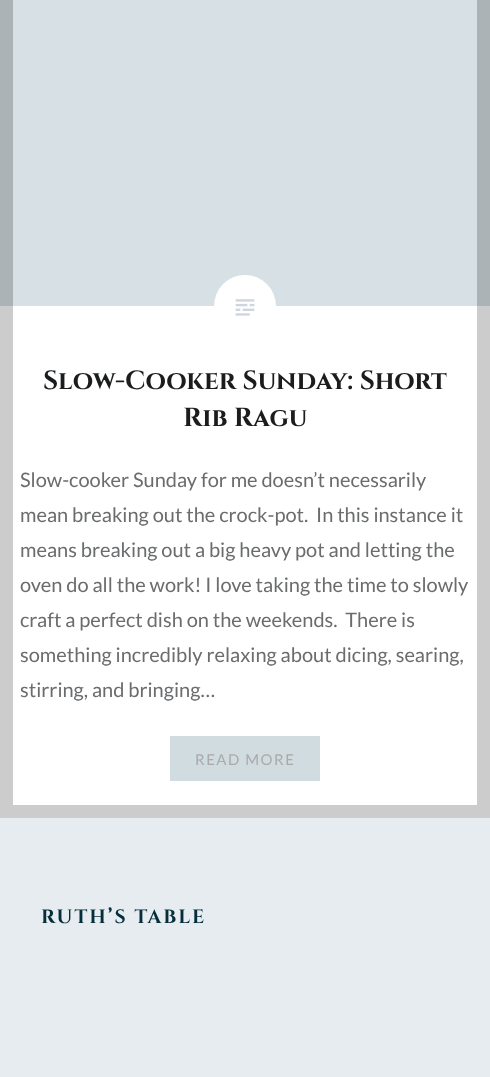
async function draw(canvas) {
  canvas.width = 490
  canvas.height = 1077
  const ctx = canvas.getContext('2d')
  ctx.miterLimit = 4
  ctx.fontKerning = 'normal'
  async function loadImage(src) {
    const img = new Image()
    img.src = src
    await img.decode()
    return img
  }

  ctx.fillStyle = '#fff'
  ctx.fillRect(0, 0, 490, 1077)
  ctx.fillStyle = '#d6e0e5'
  ctx.fillRect(0, 0, 490, 306)
  ctx.fillStyle = '#fff'
  ctx.beginPath()
  ctx.roundRect(214, 275, 62, 63, 31)
  ctx.fill()
  ctx.strokeStyle = '#00000033'
  ctx.lineWidth = 13
  ctx.strokeRect(6.5, -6.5, 477, 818)
  ctx.drawImage(await loadImage('image0.png'), 235, 299, 20, 17)
  ctx.font = 'bold 26.25px Cinzel'
  ctx.fillStyle = '#1a1c1e'
  ctx.fillText('Slow-Cooker Sunday: Short', 43, 389)
  ctx.fillText('Rib Ragu', 183, 426)
  ctx.font = '20px Lato'
  ctx.fillStyle = '#6a6c6e'
  ctx.fillText('Slow-cooker Sunday for me doesn’t necessarily', 20, 487)
  ctx.fillText('mean breaking out the crock-pot.  In this instance it', 20, 522)
  ctx.fillText('means breaking out a big heavy pot and letting the', 20, 557)
  ctx.fillText('oven do all the work! I love taking the time to slowly', 20, 592)
  ctx.fillText('craft a perfect dish on the weekends.  There is', 20, 627)
  ctx.fillText('something incredibly relaxing about dicing, searing,', 20, 662)
  ctx.fillText('stirring, and bringing…', 20, 697)
  ctx.fillStyle = '#d1dce0'
  ctx.fillRect(170, 736, 150, 45)
  ctx.letterSpacing = '1.5px'
  ctx.font = '15px Lato'
  ctx.fillStyle = '#aaa'
  ctx.fillText('READ MORE', 195, 765)
  ctx.fillStyle = '#e6ecef'
  ctx.fillRect(0, 818, 490, 259)
  ctx.letterSpacing = '2px'
  ctx.font = 'bold 19.25px Cinzel'
  ctx.fillStyle = '#052d3c'
  ctx.fillText('RUTH’S TABLE', 41, 923)
}

draw(document.querySelector('canvas'))
